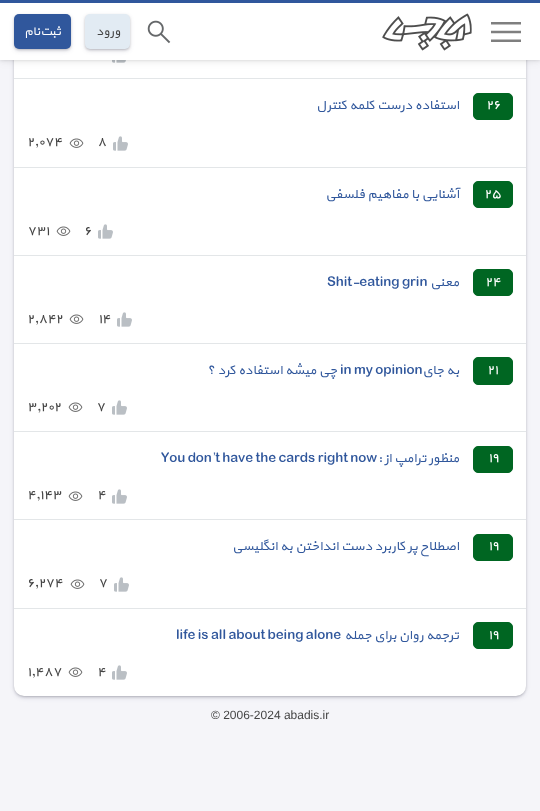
async function draw(canvas) {
  canvas.width = 540
  canvas.height = 811
  const ctx = canvas.getContext('2d')
  ctx.miterLimit = 4
  ctx.fontKerning = 'normal'
  async function loadImage(src) {
    const img = new Image()
    img.src = src
    await img.decode()
    return img
  }

  ctx.fillStyle = '#f5f5f9'
  ctx.fillRect(0, 0, 540, 811)
  ctx.fillStyle = '#0000004d'
  ctx.filter = 'blur(1.5px)'
  ctx.beginPath()
  ctx.roundRect(15, -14, 510, 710, 9)
  ctx.fill()
  ctx.filter = 'none'
  ctx.fillStyle = '#32325d40'
  ctx.filter = 'blur(2.5px)'
  ctx.beginPath()
  ctx.roundRect(15, -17, 510, 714, 9)
  ctx.fill()
  ctx.filter = 'none'
  ctx.fillStyle = '#fff'
  ctx.beginPath()
  ctx.roundRect(14, -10, 512, 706, 10)
  ctx.fill()
  ctx.drawImage(await loadImage('image3.png'), 112, 60, 14, 3)
  ctx.fillStyle = '#0000000d'
  ctx.filter = 'blur(4px)'
  ctx.beginPath()
  ctx.rect(0, 2, 540, 60)
  ctx.fill()
  ctx.filter = 'none'
  ctx.filter = 'blur(2px)'
  ctx.beginPath()
  ctx.rect(0, 1, 540, 60)
  ctx.fill()
  ctx.filter = 'none'
  ctx.filter = 'blur(1px)'
  ctx.beginPath()
  ctx.rect(0, 1, 540, 60)
  ctx.fill()
  ctx.filter = 'none'
  ctx.fillStyle = '#30579c'
  ctx.fillRect(0, 0, 540, 3)
  ctx.fillStyle = '#fff'
  ctx.fillRect(0, 3, 540, 57)
  ctx.fillStyle = '#0000004d'
  ctx.filter = 'blur(1.5px)'
  ctx.beginPath()
  ctx.roundRect(15, 16, 55, 33, 4)
  ctx.fill()
  ctx.filter = 'none'
  ctx.fillStyle = '#32325d40'
  ctx.filter = 'blur(2.5px)'
  ctx.beginPath()
  ctx.roundRect(15, 17, 55, 33, 4)
  ctx.fill()
  ctx.filter = 'none'
  ctx.fillStyle = '#30579c'
  ctx.beginPath()
  ctx.roundRect(14, 14, 57, 35, 5)
  ctx.fill()
  ctx.direction = 'rtl'
  ctx.font = '300 12.5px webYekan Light'
  ctx.fillStyle = '#fff'
  ctx.fillText('ثبت‌نام', 61, 35)
  ctx.fillStyle = '#0000004d'
  ctx.filter = 'blur(1.5px)'
  ctx.beginPath()
  ctx.roundRect(86, 16, 43, 33, 4)
  ctx.fill()
  ctx.filter = 'none'
  ctx.fillStyle = '#32325d40'
  ctx.filter = 'blur(2.5px)'
  ctx.beginPath()
  ctx.roundRect(86, 17, 43, 33, 4)
  ctx.fill()
  ctx.filter = 'none'
  ctx.fillStyle = '#e2ebf3'
  ctx.beginPath()
  ctx.roundRect(85, 14, 45, 35, 5)
  ctx.fill()
  ctx.fillStyle = '#444'
  ctx.fillText('ورود', 120, 35)
  ctx.drawImage(await loadImage('image0.png'), 147, 20, 24, 24)
  ctx.drawImage(await loadImage('image1.png'), 382, 13, 90, 38)
  ctx.drawImage(await loadImage('image2.png'), 491, 22, 30, 20)
  ctx.fillStyle = '#e3e6e8'
  ctx.fillRect(14, 78, 512, 1)
  ctx.font = '300 13.25px webYekan Light'
  ctx.fillStyle = '#30579c'
  ctx.fillText('استفاده درست کلمه کنترل', 459, 109)
  ctx.fillStyle = '#062'
  ctx.beginPath()
  ctx.roundRect(473.5, 93.5, 39, 26, 4.5)
  ctx.fill()
  ctx.strokeStyle = '#062'
  ctx.stroke()
  ctx.direction = 'ltr'
  ctx.fillStyle = '#fff'
  ctx.fillText('٢٦', 486, 109)
  ctx.fillStyle = '#444'
  ctx.fillText('٢,٠٧٤', 27, 146)
  ctx.drawImage(await loadImage('image4.png'), 69, 138, 15, 10)
  ctx.fillText('٨', 97, 146)
  ctx.drawImage(await loadImage('image5.png'), 113, 136, 15, 15)
  ctx.fillStyle = '#e3e6e8'
  ctx.fillRect(14, 167, 512, 1)
  ctx.direction = 'rtl'
  ctx.fillStyle = '#30579c'
  ctx.fillText('آشنایی با مفاهیم فلسفی', 459, 198)
  ctx.fillStyle = '#062'
  ctx.beginPath()
  ctx.roundRect(473.5, 181.5, 39, 26, 4.5)
  ctx.fill()
  ctx.stroke()
  ctx.direction = 'ltr'
  ctx.fillStyle = '#fff'
  ctx.fillText('٢٥', 484, 198)
  ctx.fillStyle = '#444'
  ctx.fillText('٧٣١', 27, 235)
  ctx.drawImage(await loadImage('image4.png'), 56, 226, 15, 10)
  ctx.fillText('٦', 84, 235)
  ctx.drawImage(await loadImage('image5.png'), 98, 224, 15, 15)
  ctx.fillStyle = '#e3e6e8'
  ctx.fillRect(14, 255, 512, 1)
  ctx.fillStyle = '#30579c'
  ctx.fillText('Shit-eating grin', 327, 286)
  ctx.direction = 'rtl'
  ctx.fillText('معنی', 459, 286)
  ctx.fillStyle = '#062'
  ctx.beginPath()
  ctx.roundRect(473.5, 269.5, 39, 26, 4.5)
  ctx.fill()
  ctx.stroke()
  ctx.direction = 'ltr'
  ctx.fillStyle = '#fff'
  ctx.fillText('٢٤', 485, 286)
  ctx.fillStyle = '#444'
  ctx.fillText('٢,٨٤٢', 27, 323)
  ctx.drawImage(await loadImage('image4.png'), 69, 314, 15, 10)
  ctx.fillText('١٤', 98, 323)
  ctx.drawImage(await loadImage('image5.png'), 117, 312, 15, 15)
  ctx.fillStyle = '#e3e6e8'
  ctx.fillRect(14, 343, 512, 1)
  ctx.direction = 'rtl'
  ctx.fillStyle = '#30579c'
  ctx.fillText('چی میشه استفاده کرد ؟', 337, 374)
  ctx.direction = 'ltr'
  ctx.fillText('in my opinion', 340, 374)
  ctx.direction = 'rtl'
  ctx.fillText('به جای', 459, 374)
  ctx.fillStyle = '#062'
  ctx.beginPath()
  ctx.roundRect(473.5, 357.5, 39, 27, 4.5)
  ctx.fill()
  ctx.stroke()
  ctx.direction = 'ltr'
  ctx.fillStyle = '#fff'
  ctx.fillText('٢١', 487, 374)
  ctx.fillStyle = '#444'
  ctx.fillText('٣,٢٠٢', 27, 411)
  ctx.drawImage(await loadImage('image4.png'), 68, 402, 15, 10)
  ctx.fillText('٧', 96, 411)
  ctx.drawImage(await loadImage('image5.png'), 112, 400, 15, 15)
  ctx.fillStyle = '#e3e6e8'
  ctx.fillRect(14, 431, 512, 1)
  ctx.fillStyle = '#30579c'
  ctx.fillText('You don’t have the cards right now', 161, 462)
  ctx.direction = 'rtl'
  ctx.fillText('منظور ترامپ از :', 459, 462)
  ctx.fillStyle = '#062'
  ctx.beginPath()
  ctx.roundRect(473.5, 446.5, 39, 26, 4.5)
  ctx.fill()
  ctx.stroke()
  ctx.direction = 'ltr'
  ctx.fillStyle = '#fff'
  ctx.fillText('١٩', 488, 462)
  ctx.fillStyle = '#444'
  ctx.fillText('٤,١٤٣', 27, 499)
  ctx.drawImage(await loadImage('image4.png'), 68, 491, 15, 10)
  ctx.fillText('٤', 97, 499)
  ctx.drawImage(await loadImage('image5.png'), 112, 489, 15, 15)
  ctx.fillStyle = '#e3e6e8'
  ctx.fillRect(14, 519, 512, 1)
  ctx.direction = 'rtl'
  ctx.fillStyle = '#30579c'
  ctx.fillText('اصطلاح پر کاربرد دست انداختن به انگلیسی', 459, 550)
  ctx.fillStyle = '#062'
  ctx.beginPath()
  ctx.roundRect(473.5, 534.5, 39, 26, 4.5)
  ctx.fill()
  ctx.stroke()
  ctx.direction = 'ltr'
  ctx.fillStyle = '#fff'
  ctx.fillText('١٩', 488, 550)
  ctx.fillStyle = '#444'
  ctx.fillText('٦,٢٧٤', 27, 587)
  ctx.drawImage(await loadImage('image4.png'), 70, 579, 15, 10)
  ctx.fillText('٧', 98, 587)
  ctx.drawImage(await loadImage('image5.png'), 114, 577, 15, 15)
  ctx.fillStyle = '#e3e6e8'
  ctx.fillRect(14, 608, 512, 1)
  ctx.fillStyle = '#30579c'
  ctx.fillText('life is all about being alone', 176, 639)
  ctx.direction = 'rtl'
  ctx.fillText('ترجمه روان برای جمله', 459, 639)
  ctx.fillStyle = '#062'
  ctx.beginPath()
  ctx.roundRect(473.5, 622.5, 39, 26, 4.5)
  ctx.fill()
  ctx.stroke()
  ctx.direction = 'ltr'
  ctx.fillStyle = '#fff'
  ctx.fillText('١٩', 488, 639)
  ctx.fillStyle = '#444'
  ctx.fillText('١,٤٨٧', 27, 676)
  ctx.drawImage(await loadImage('image4.png'), 68, 667, 15, 10)
  ctx.fillText('٤', 97, 676)
  ctx.drawImage(await loadImage('image5.png'), 112, 665, 15, 15)
  ctx.font = '12px Liberation Sans'
  ctx.fillText('© 2006-2024 abadis.ir', 211, 719)
}

draw(document.querySelector('canvas'))
